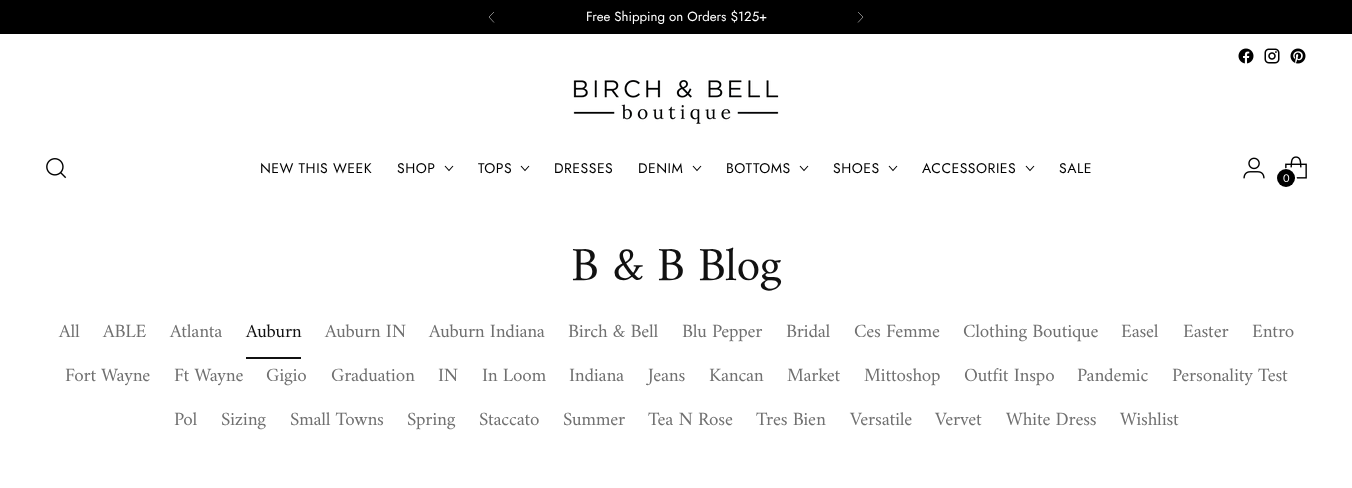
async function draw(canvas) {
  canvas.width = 1352
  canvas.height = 488
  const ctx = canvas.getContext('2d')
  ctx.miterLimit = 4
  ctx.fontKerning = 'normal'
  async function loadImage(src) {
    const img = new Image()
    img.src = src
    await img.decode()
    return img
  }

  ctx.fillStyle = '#fff'
  ctx.fillRect(0, 0, 1352, 488)
  ctx.fillStyle = '#000'
  ctx.fillRect(0, 0, 1352, 34)
  ctx.font = '13.25px Jost'
  ctx.fillStyle = '#fff'
  ctx.fillText('Free Shipping on Orders $125+', 586, 21)
  ctx.beginPath()
  ctx.moveTo(494, 12)
  ctx.lineTo(489, 17)
  ctx.lineTo(494, 22.5)
  ctx.strokeStyle = '#808080'
  ctx.stroke()
  ctx.beginPath()
  ctx.moveTo(858, 22.5)
  ctx.lineTo(863, 17)
  ctx.lineTo(858, 12)
  ctx.stroke()
  ctx.drawImage(await loadImage('image0.png'), 1238, 48, 16, 16)
  ctx.drawImage(await loadImage('image1.png'), 1264, 48, 16, 16)
  ctx.drawImage(await loadImage('image2.png'), 1290, 48, 16, 16)
  ctx.drawImage(await loadImage('image3.png'), 573, 80, 206, 44)
  ctx.drawImage(await loadImage('image4.png'), 46, 158, 21, 21)
  ctx.letterSpacing = '0.5px'
  ctx.font = '14px Jost'
  ctx.fillStyle = '#000'
  ctx.fillText('NEW THIS WEEK', 260, 173)
  ctx.fillText('SHOP', 397, 173)
  ctx.beginPath()
  ctx.moveTo(445, 166)
  ctx.lineTo(449, 170.5)
  ctx.lineTo(453, 166)
  ctx.strokeStyle = '#000'
  ctx.lineWidth = 1.1
  ctx.stroke()
  ctx.fillText('TOPS', 478, 173)
  ctx.beginPath()
  ctx.moveTo(521, 166)
  ctx.lineTo(525, 170.5)
  ctx.lineTo(529, 166)
  ctx.stroke()
  ctx.fillText('DRESSES', 554, 173)
  ctx.fillText('DENIM', 638, 173)
  ctx.beginPath()
  ctx.moveTo(693, 166)
  ctx.lineTo(697, 170.5)
  ctx.lineTo(701, 166)
  ctx.stroke()
  ctx.fillText('BOTTOMS', 726, 173)
  ctx.beginPath()
  ctx.moveTo(800, 166)
  ctx.lineTo(804, 170.5)
  ctx.lineTo(808, 166)
  ctx.stroke()
  ctx.fillText('SHOES', 833, 173)
  ctx.beginPath()
  ctx.moveTo(889, 166)
  ctx.lineTo(893, 170.5)
  ctx.lineTo(897, 166)
  ctx.stroke()
  ctx.fillText('ACCESSORIES', 922, 173)
  ctx.beginPath()
  ctx.moveTo(1026, 166)
  ctx.lineTo(1030, 170.5)
  ctx.lineTo(1034, 166)
  ctx.stroke()
  ctx.fillText('SALE', 1059, 173)
  ctx.drawImage(await loadImage('image5.png'), 1243, 157, 22, 22)
  ctx.drawImage(await loadImage('image6.png'), 1285, 156, 22, 23)
  ctx.beginPath()
  ctx.arc(1286.5, 178.5, 9.5, 0, 2 * Math.PI)
  ctx.strokeStyle = '#fff'
  ctx.lineWidth = 2
  ctx.stroke()
  ctx.beginPath()
  ctx.arc(1286, 178, 9, 0, 2 * Math.PI)
  ctx.fill()
  ctx.letterSpacing = '0px'
  ctx.font = '11px Jost'
  ctx.fillStyle = '#fff'
  ctx.fillText('0', 1283, 182)
  ctx.letterSpacing = '-0.5px'
  ctx.font = '48px Amiri'
  ctx.fillStyle = '#111'
  ctx.fillText('B & B Blog', 571, 280)
  ctx.letterSpacing = '-0.2px'
  ctx.font = '19px Amiri'
  ctx.fillStyle = '#707070'
  ctx.fillText('All', 59, 337)
  ctx.fillText('ABLE', 103, 337)
  ctx.fillText('Atlanta', 170, 337)
  ctx.fillStyle = '#111'
  ctx.fillText('Auburn', 246, 337)
  ctx.fillRect(246, 357, 55, 2)
  ctx.fillStyle = '#707070'
  ctx.fillText('Auburn IN', 325, 337)
  ctx.fillText('Auburn Indiana', 429, 337)
  ctx.fillText('Birch & Bell', 568, 337)
  ctx.fillText('Blu Pepper', 682, 337)
  ctx.fillText('Bridal', 786, 337)
  ctx.fillText('Ces Femme', 854, 337)
  ctx.fillText('Clothing Boutique', 963, 337)
  ctx.fillText('Easel', 1121, 337)
  ctx.fillText('Easter', 1183, 337)
  ctx.fillText('Entro', 1252, 337)
  ctx.fillText('Fort Wayne', 65, 381)
  ctx.fillText('Ft Wayne', 174, 381)
  ctx.fillText('Gigio', 266, 381)
  ctx.fillText('Graduation', 331, 381)
  ctx.fillText('IN', 438, 381)
  ctx.fillText('In Loom', 482, 381)
  ctx.fillText('Indiana', 569, 381)
  ctx.fillText('Jeans', 648, 381)
  ctx.fillText('Kancan', 709, 381)
  ctx.fillText('Market', 787, 381)
  ctx.fillText('Mittoshop', 864, 381)
  ctx.fillText('Outfit Inspo', 964, 381)
  ctx.fillText('Pandemic', 1077, 381)
  ctx.fillText('Personality Test', 1172, 381)
  ctx.fillText('Pol', 174, 425)
  ctx.fillText('Sizing', 221, 425)
  ctx.fillText('Small Towns', 290, 425)
  ctx.fillText('Spring', 407, 425)
  ctx.fillText('Staccato', 479, 425)
  ctx.fillText('Summer', 563, 425)
  ctx.fillText('Tea N Rose', 648, 425)
  ctx.fillText('Tres Bien', 756, 425)
  ctx.fillText('Versatile', 850, 425)
  ctx.fillText('Vervet', 935, 425)
  ctx.fillText('White Dress', 1006, 425)
  ctx.fillText('Wishlist', 1120, 425)
}

draw(document.querySelector('canvas'))
